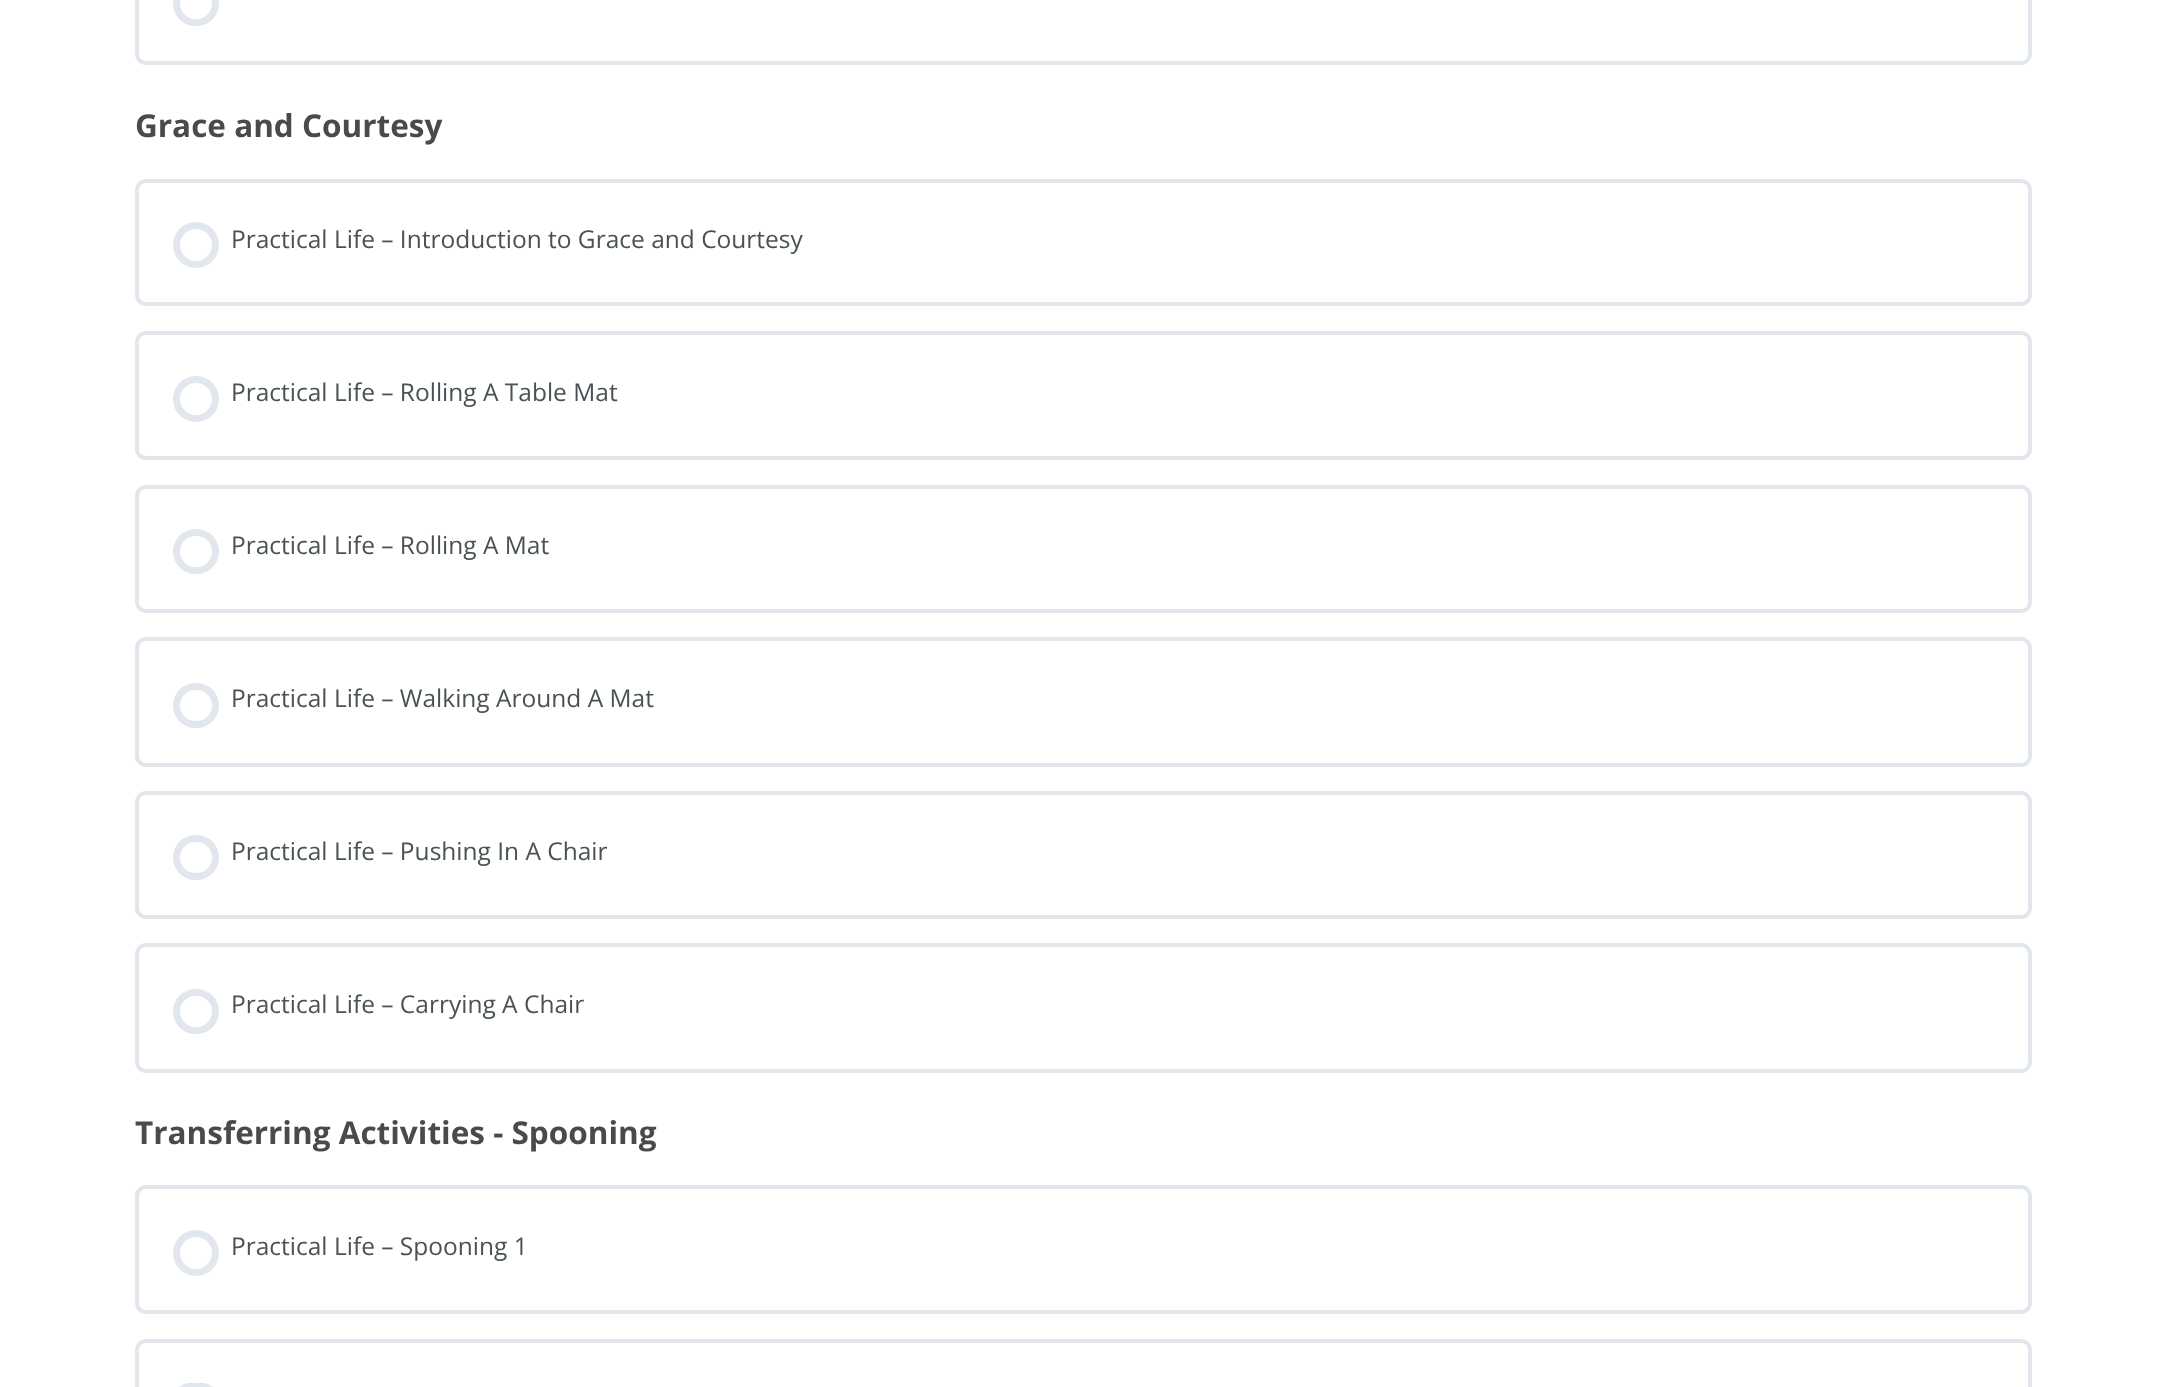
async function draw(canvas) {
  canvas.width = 2165
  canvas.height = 1387
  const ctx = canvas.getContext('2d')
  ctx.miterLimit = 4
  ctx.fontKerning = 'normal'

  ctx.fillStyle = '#fff'
  ctx.fillRect(0, 0, 2165, 1387)
  ctx.beginPath()
  ctx.roundRect(137, -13, 1893, 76, 9)
  ctx.strokeStyle = '#e2e7ed'
  ctx.lineWidth = 4
  ctx.stroke()
  ctx.beginPath()
  ctx.roundRect(176.5, -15.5, 39, 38, 19)
  ctx.lineWidth = 7
  ctx.stroke()
  ctx.font = 'bold 31.5px Open Sans'
  ctx.fillStyle = '#4a4a4a'
  ctx.fillText('Grace and Courtesy', 135, 137)
  ctx.beginPath()
  ctx.roundRect(137, 181, 1893, 123, 9)
  ctx.lineWidth = 4
  ctx.stroke()
  ctx.beginPath()
  ctx.arc(196, 245, 19.5, 0, 2 * Math.PI)
  ctx.lineWidth = 7
  ctx.stroke()
  ctx.font = '24.5px Open Sans'
  ctx.fillStyle = '#495255'
  ctx.fillText('Practical Life – Introduction to Grace and Courtesy', 231, 248)
  ctx.beginPath()
  ctx.roundRect(137, 333, 1893, 125, 9)
  ctx.lineWidth = 4
  ctx.stroke()
  ctx.beginPath()
  ctx.arc(196, 399, 19.5, 0, 2 * Math.PI)
  ctx.lineWidth = 7
  ctx.stroke()
  ctx.fillText('Practical Life – Rolling A Table Mat', 231, 401)
  ctx.beginPath()
  ctx.roundRect(137, 487, 1893, 124, 9)
  ctx.lineWidth = 4
  ctx.stroke()
  ctx.beginPath()
  ctx.roundRect(176.5, 532.5, 39, 38, 19)
  ctx.lineWidth = 7
  ctx.stroke()
  ctx.fillText('Practical Life – Rolling A Mat', 231, 554)
  ctx.beginPath()
  ctx.roundRect(137, 639, 1893, 126, 9)
  ctx.lineWidth = 4
  ctx.stroke()
  ctx.beginPath()
  ctx.roundRect(176.5, 686.5, 39, 38, 19)
  ctx.lineWidth = 7
  ctx.stroke()
  ctx.fillText('Practical Life – Walking Around A Mat', 231, 707)
  ctx.beginPath()
  ctx.roundRect(137, 793, 1893, 124, 9)
  ctx.lineWidth = 4
  ctx.stroke()
  ctx.beginPath()
  ctx.roundRect(176.5, 838.5, 39, 38, 19)
  ctx.lineWidth = 7
  ctx.stroke()
  ctx.fillText('Practical Life – Pushing In A Chair', 231, 860)
  ctx.beginPath()
  ctx.roundRect(137, 945, 1893, 126, 9)
  ctx.lineWidth = 4
  ctx.stroke()
  ctx.beginPath()
  ctx.roundRect(176.5, 992.5, 39, 38, 19)
  ctx.lineWidth = 7
  ctx.stroke()
  ctx.fillText('Practical Life – Carrying A Chair', 231, 1013)
  ctx.font = 'bold 31.5px Open Sans'
  ctx.fillStyle = '#4a4a4a'
  ctx.fillText('Transferring Activities - Spooning', 135, 1144)
  ctx.beginPath()
  ctx.roundRect(137, 1187, 1893, 125, 9)
  ctx.lineWidth = 4
  ctx.stroke()
  ctx.beginPath()
  ctx.arc(196, 1253, 19.5, 0, 2 * Math.PI)
  ctx.lineWidth = 7
  ctx.stroke()
  ctx.font = '24.5px Open Sans'
  ctx.fillStyle = '#495255'
  ctx.fillText('Practical Life – Spooning 1', 231, 1255)
  ctx.beginPath()
  ctx.roundRect(137, 1341, 1893, 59, 9)
  ctx.lineWidth = 4
  ctx.stroke()
  ctx.beginPath()
  ctx.roundRect(176.5, 1386.5, 39, 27, 19)
  ctx.lineWidth = 7
  ctx.stroke()
}

draw(document.querySelector('canvas'))
